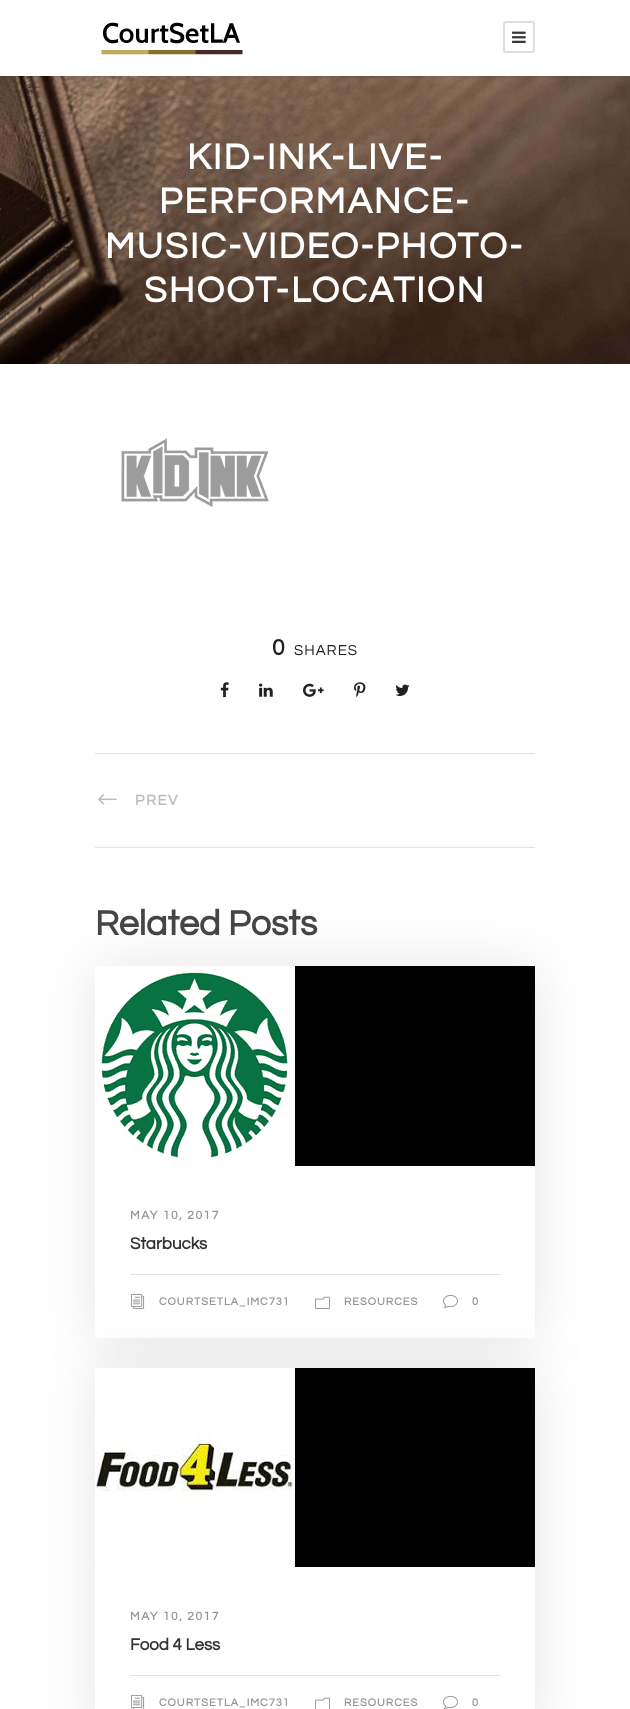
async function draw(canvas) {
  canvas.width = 630
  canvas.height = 1709
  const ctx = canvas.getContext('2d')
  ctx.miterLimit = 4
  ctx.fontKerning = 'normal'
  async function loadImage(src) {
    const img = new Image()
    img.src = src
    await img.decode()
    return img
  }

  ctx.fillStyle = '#fff'
  ctx.fillRect(0, 0, 630, 1709)
  ctx.drawImage(await loadImage('image2.png'), 0, 76, 630, 288)
  ctx.save()
  ctx.beginPath()
  ctx.rect(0, 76, 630, 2)
  ctx.clip()
  ctx.fillStyle = '#0000001a'
  ctx.filter = 'blur(1px)'
  ctx.beginPath()
  ctx.rect(0, 1, 630, 76)
  ctx.fill()
  ctx.filter = 'none'
  ctx.restore()
  ctx.drawImage(await loadImage('image0.png'), 101, 22, 142, 33)
  ctx.beginPath()
  ctx.roundRect(504, 22, 30, 30, 2)
  ctx.strokeStyle = '#ddd'
  ctx.lineWidth = 2
  ctx.stroke()
  ctx.drawImage(await loadImage('image1.png'), 512, 31, 14, 12)
  ctx.letterSpacing = '2px'
  ctx.font = 'bold 37px Questrial'
  ctx.fillText('KID-INK-LIVE-', 187, 169)
  ctx.fillText('PERFORMANCE-', 159, 213)
  ctx.fillText('MUSIC-VIDEO-PHOTO-', 105, 258)
  ctx.fillText('SHOOT-LOCATION', 144, 302)
  ctx.drawImage(await loadImage('image3.png'), 121, 438, 148, 69)
  ctx.letterSpacing = '0px'
  ctx.font = 'bold 23px Questrial'
  ctx.fillStyle = '#202020'
  ctx.fillText('0', 272, 655)
  ctx.letterSpacing = '1px'
  ctx.font = '15px Questrial'
  ctx.fillText('SHARES', 294, 655)
  ctx.drawImage(await loadImage('image4.png'), 220, 682, 9, 16)
  ctx.drawImage(await loadImage('image5.png'), 259, 683, 14, 14)
  ctx.drawImage(await loadImage('image6.png'), 303, 683, 21, 14)
  ctx.drawImage(await loadImage('image7.png'), 354, 682, 12, 16)
  ctx.drawImage(await loadImage('image8.png'), 395, 684, 15, 12)
  ctx.fillStyle = '#e2e2e2'
  ctx.fillRect(95, 753, 440, 1)
  ctx.fillRect(95, 847, 440, 1)
  ctx.drawImage(await loadImage('image9.png'), 98, 793, 19, 12)
  ctx.letterSpacing = '1.5px'
  ctx.font = 'bold 15px Questrial'
  ctx.fillStyle = '#bcbcbc'
  ctx.fillText('PREV', 135, 805)
  ctx.letterSpacing = '0px'
  ctx.font = 'bold 36px Questrial'
  ctx.fillStyle = '#464646'
  ctx.fillText('Related Posts', 95, 935)
  ctx.save()
  ctx.beginPath()
  ctx.moveTo(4, 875)
  ctx.lineTo(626, 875)
  ctx.lineTo(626, 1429)
  ctx.lineTo(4, 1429)
  ctx.closePath()
  ctx.moveTo(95, 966)
  ctx.lineTo(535, 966)
  ctx.lineTo(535, 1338)
  ctx.lineTo(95, 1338)
  ctx.closePath()
  ctx.clip('evenodd')
  ctx.fillStyle = '#0000001a'
  ctx.filter = 'blur(30px)'
  ctx.beginPath()
  ctx.rect(95, 966, 440, 372)
  ctx.fill()
  ctx.filter = 'none'
  ctx.restore()
  ctx.fillStyle = '#000'
  ctx.fillRect(295, 966, 240, 200)
  ctx.drawImage(await loadImage('image10.png'), 95, 966, 200, 200)
  ctx.letterSpacing = '1.5px'
  ctx.font = 'bold 12px Questrial'
  ctx.fillStyle = '#959595'
  ctx.fillText('MAY 10, 2017', 130, 1219)
  ctx.letterSpacing = '0px'
  ctx.font = 'bold 17px Questrial'
  ctx.fillStyle = '#343434'
  ctx.fillText('Starbucks', 130, 1249)
  ctx.fillStyle = '#e2e2e2'
  ctx.fillRect(130, 1274, 370, 1)
  ctx.drawImage(await loadImage('image11.png'), 130, 1293, 15, 16)
  ctx.letterSpacing = '1px'
  ctx.font = 'bold 11px Questrial'
  ctx.fillStyle = '#959595'
  ctx.fillText('COURTSETLA_IMC731', 159, 1305)
  ctx.drawImage(await loadImage('image12.png'), 315, 1296, 15, 13)
  ctx.fillText('RESOURCES', 344, 1305)
  ctx.drawImage(await loadImage('image13.png'), 443, 1294, 15, 14)
  ctx.fillText('0', 472, 1305)
  ctx.fillStyle = '#0000001a'
  ctx.filter = 'blur(30px)'
  ctx.beginPath()
  ctx.rect(95, 1368, 440, 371)
  ctx.fill()
  ctx.filter = 'none'
  ctx.fillStyle = '#fff'
  ctx.fillRect(95, 1567, 440, 142)
  ctx.fillStyle = '#000'
  ctx.fillRect(295, 1368, 240, 199)
  ctx.drawImage(await loadImage('image14.png'), 95, 1368, 200, 199)
  ctx.letterSpacing = '1.5px'
  ctx.font = 'bold 12px Questrial'
  ctx.fillStyle = '#959595'
  ctx.fillText('MAY 10, 2017', 130, 1620)
  ctx.letterSpacing = '0px'
  ctx.font = 'bold 17px Questrial'
  ctx.fillStyle = '#343434'
  ctx.fillText('Food 4 Less', 130, 1650)
  ctx.fillStyle = '#e2e2e2'
  ctx.fillRect(130, 1675, 370, 1)
  ctx.drawImage(await loadImage('image15.png'), 130, 1694, 15, 15)
  ctx.letterSpacing = '1px'
  ctx.font = 'bold 11px Questrial'
  ctx.fillStyle = '#959595'
  ctx.fillText('COURTSETLA_IMC731', 159, 1706)
  ctx.drawImage(await loadImage('image16.png'), 315, 1697, 15, 12)
  ctx.fillText('RESOURCES', 344, 1706)
  ctx.drawImage(await loadImage('image13.png'), 443, 1695, 15, 14)
  ctx.fillText('0', 472, 1706)
}

draw(document.querySelector('canvas'))
